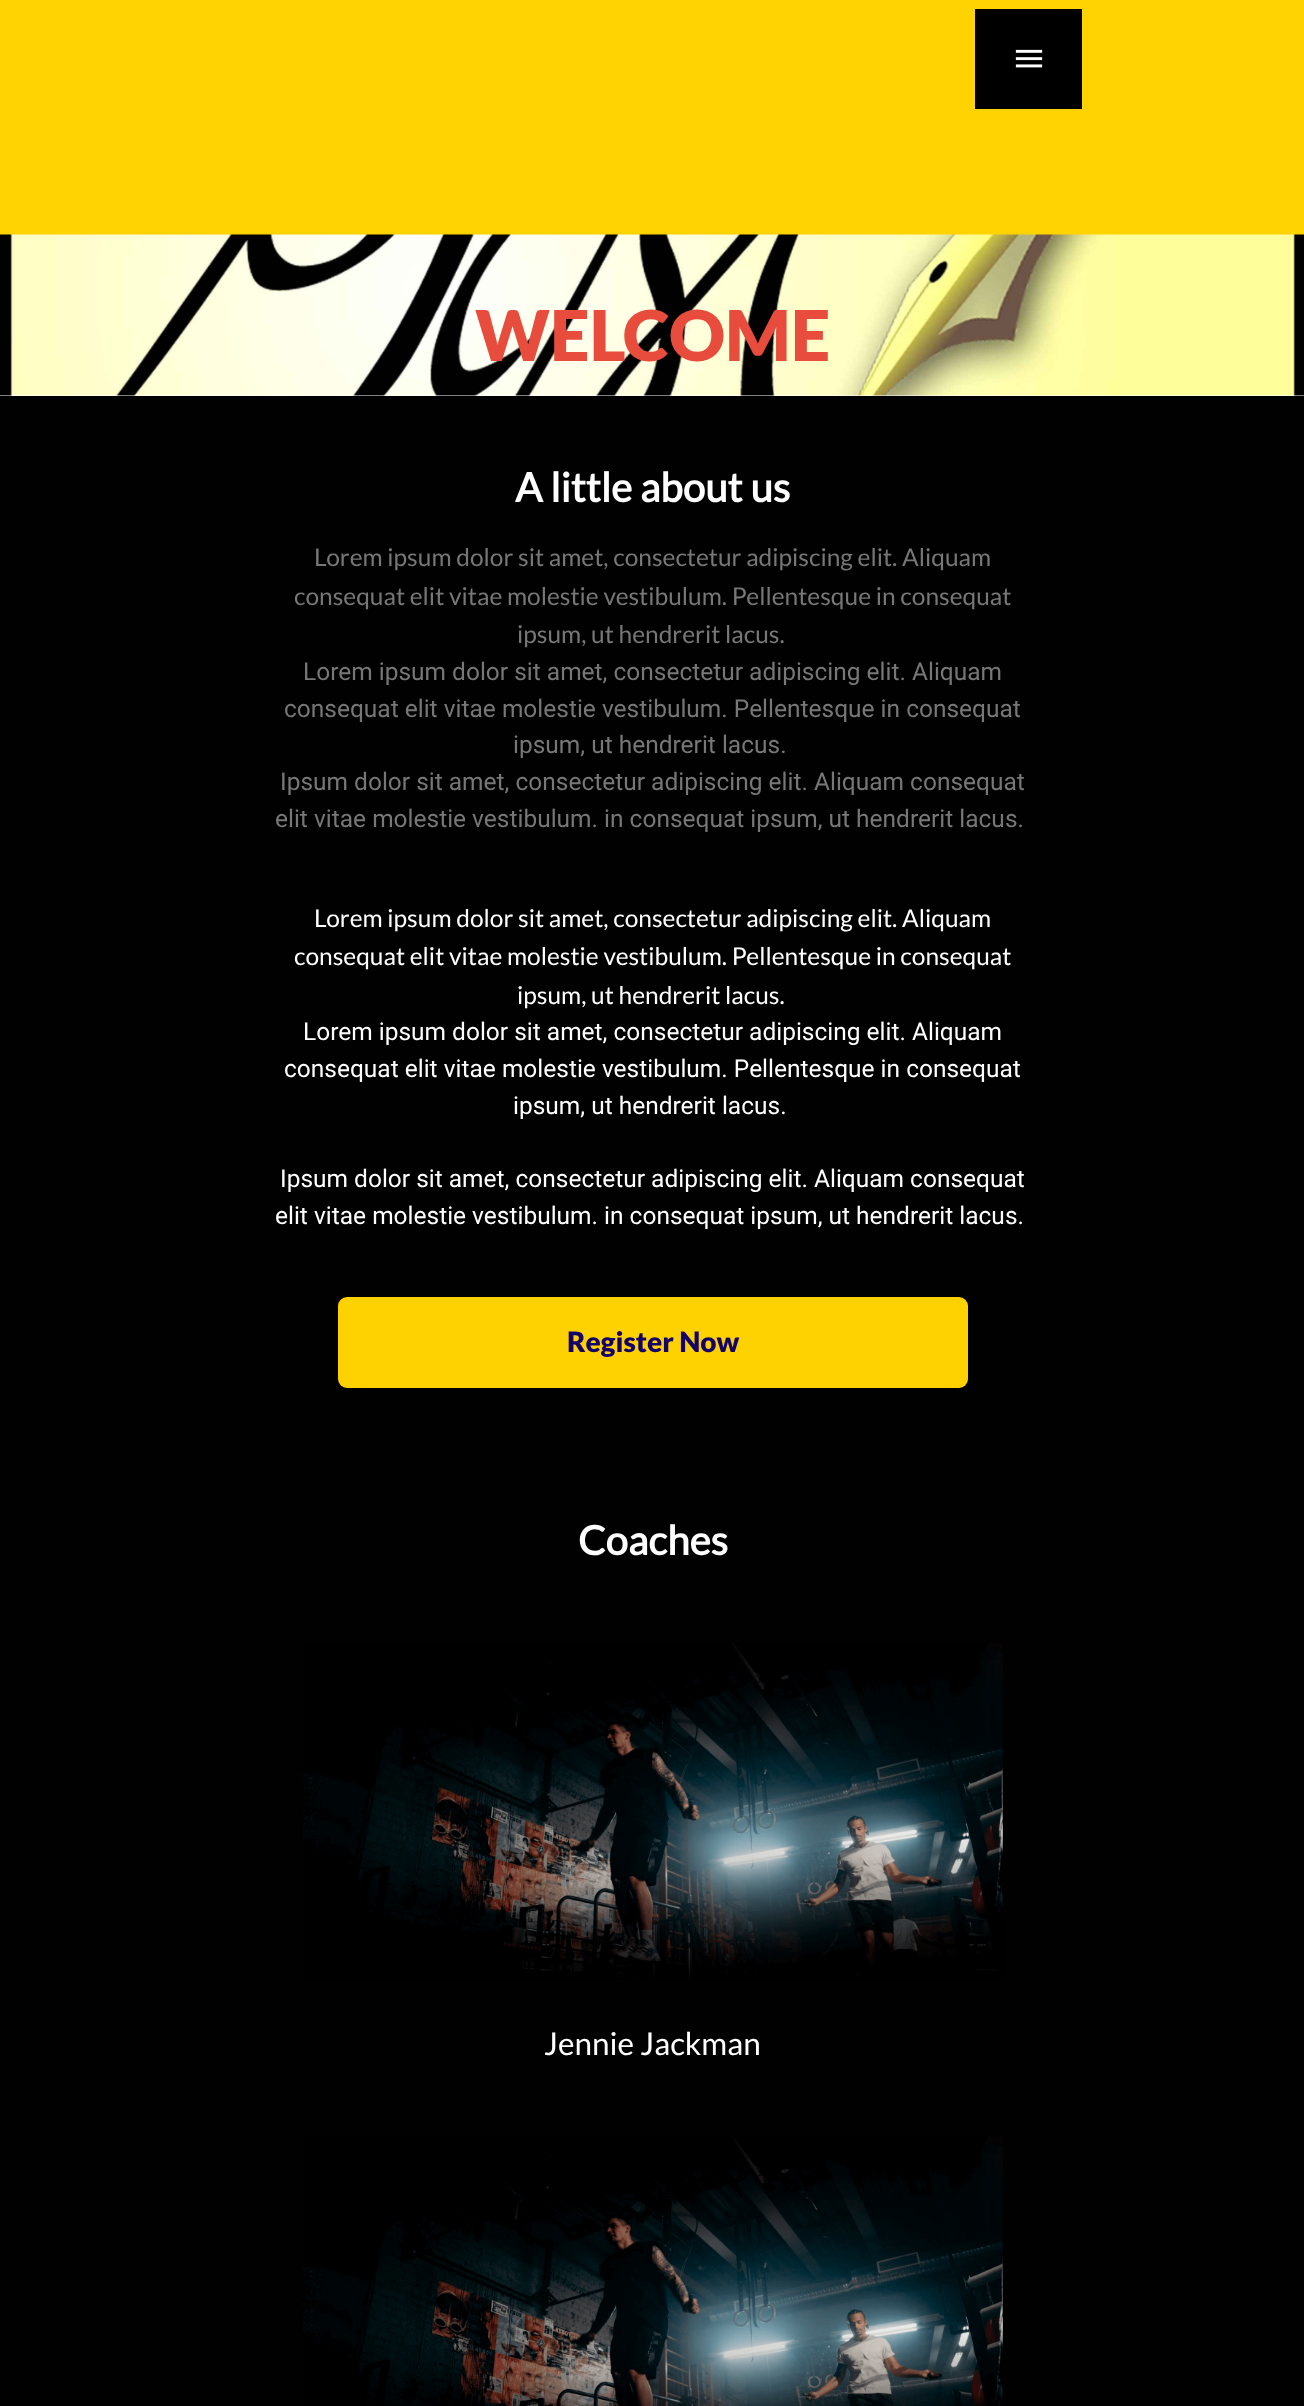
async function draw(canvas) {
  canvas.width = 1304
  canvas.height = 2406
  const ctx = canvas.getContext('2d')
  ctx.miterLimit = 4
  ctx.fontKerning = 'normal'
  async function loadImage(src) {
    const img = new Image()
    img.src = src
    await img.decode()
    return img
  }

  ctx.fillStyle = '#fff'
  ctx.fillRect(0, 0, 1304, 2406)
  ctx.fillStyle = '#ffd201'
  ctx.fillRect(0, 0, 1304, 235)
  ctx.fillStyle = '#000'
  ctx.fillRect(975, 9, 107, 100)
  ctx.drawImage(await loadImage('image0.png'), 1015, 49, 28, 19)
  ctx.drawImage(await loadImage('image1.png'), 0, 234, 1304, 162)
  ctx.font = '900 70px Lato'
  ctx.fillStyle = '#e74c3c'
  ctx.fillText('WELCOME', 475, 361)
  ctx.fillStyle = '#010101'
  ctx.fillRect(0, 396, 1304, 2010)
  ctx.font = 'bold 40.25px Lato'
  ctx.fillStyle = '#fff'
  ctx.fillText('A little about us', 515, 502)
  ctx.font = '24.5px Lato'
  ctx.fillStyle = '#777'
  ctx.fillText('Lorem ipsum dolor sit amet, consectetur adipiscing elit. Aliquam', 314, 566)
  ctx.fillText('consequat elit vitae molestie vestibulum. Pellentesque in consequat', 294, 605)
  ctx.fillText('ipsum, ut hendrerit lacus.', 517, 643)
  ctx.font = '24.5px Roboto'
  ctx.fillText('Lorem ipsum dolor sit amet, consectetur adipiscing elit. Aliquam', 303, 680)
  ctx.fillText('consequat elit vitae molestie vestibulum. Pellentesque in consequat', 284, 717)
  ctx.fillText('ipsum, ut hendrerit lacus.', 513, 753)
  ctx.fillText('Ipsum dolor sit amet, consectetur adipiscing elit. Aliquam consequat', 280, 790)
  ctx.fillText('elit vitae molestie vestibulum. in consequat ipsum, ut hendrerit lacus.', 275, 827)
  ctx.font = '24.5px Lato'
  ctx.fillStyle = '#fff'
  ctx.fillText('Lorem ipsum dolor sit amet, consectetur adipiscing elit. Aliquam', 314, 927)
  ctx.fillText('consequat elit vitae molestie vestibulum. Pellentesque in consequat', 294, 965)
  ctx.fillText('ipsum, ut hendrerit lacus.', 517, 1004)
  ctx.font = '24.5px Roboto'
  ctx.fillText('Lorem ipsum dolor sit amet, consectetur adipiscing elit. Aliquam', 303, 1040)
  ctx.fillText('consequat elit vitae molestie vestibulum. Pellentesque in consequat', 284, 1077)
  ctx.fillText('ipsum, ut hendrerit lacus.', 513, 1114)
  ctx.fillText('Ipsum dolor sit amet, consectetur adipiscing elit. Aliquam consequat', 280, 1187)
  ctx.fillText('elit vitae molestie vestibulum. in consequat ipsum, ut hendrerit lacus.', 275, 1224)
  ctx.fillStyle = '#fed100'
  ctx.beginPath()
  ctx.roundRect(338, 1297, 630, 91, 9)
  ctx.fill()
  ctx.font = '900 28px Lato'
  ctx.fillStyle = '#14026c'
  ctx.fillText('Register Now', 567, 1352)
  ctx.font = 'bold 40.25px Lato'
  ctx.fillStyle = '#fff'
  ctx.fillText('Coaches', 578, 1555)
  ctx.drawImage(await loadImage('image2.png'), 303, 1643, 700, 336)
  ctx.font = '31.5px Lato'
  ctx.fillText('Jennie Jackman', 544, 2055)
  ctx.drawImage(await loadImage('image3.png'), 303, 2136, 700, 270)
}

draw(document.querySelector('canvas'))
